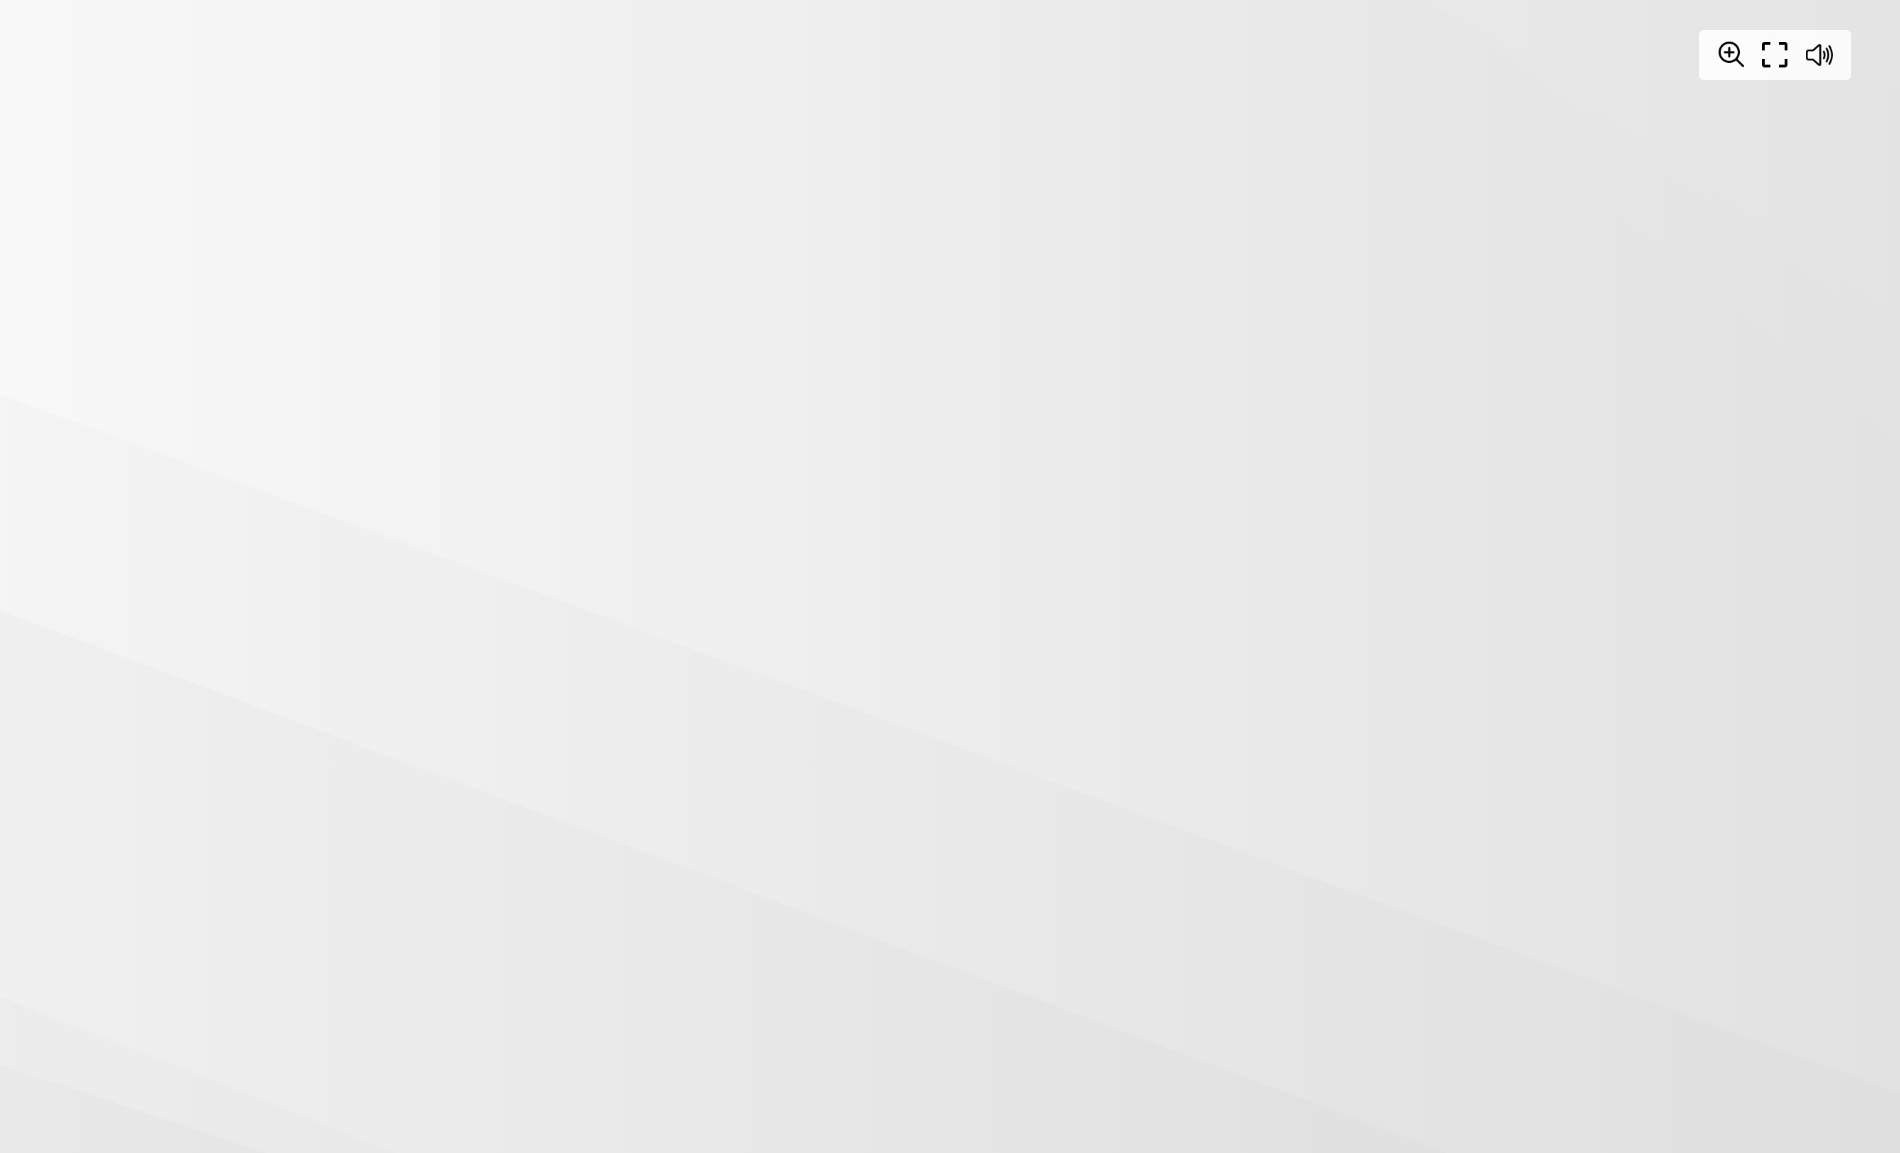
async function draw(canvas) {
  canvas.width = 1900
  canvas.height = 1153
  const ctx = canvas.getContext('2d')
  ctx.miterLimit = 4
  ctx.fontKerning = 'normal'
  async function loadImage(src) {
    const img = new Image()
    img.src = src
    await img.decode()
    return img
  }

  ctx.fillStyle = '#fff'
  ctx.fillRect(0, 0, 1900, 1153)
  ctx.drawImage(await loadImage('image0.png'), 0, 0, 1900, 1153)
  ctx.fillStyle = '#ffffffd9'
  ctx.beginPath()
  ctx.roundRect(1699, 30, 152, 50, 5)
  ctx.fill()
  ctx.drawImage(await loadImage('image1.png'), 1718, 41, 27, 27)
  ctx.drawImage(await loadImage('image2.png'), 1762, 42, 26, 26)
  ctx.drawImage(await loadImage('image3.png'), 1806, 44, 27, 22)
}

draw(document.querySelector('canvas'))
